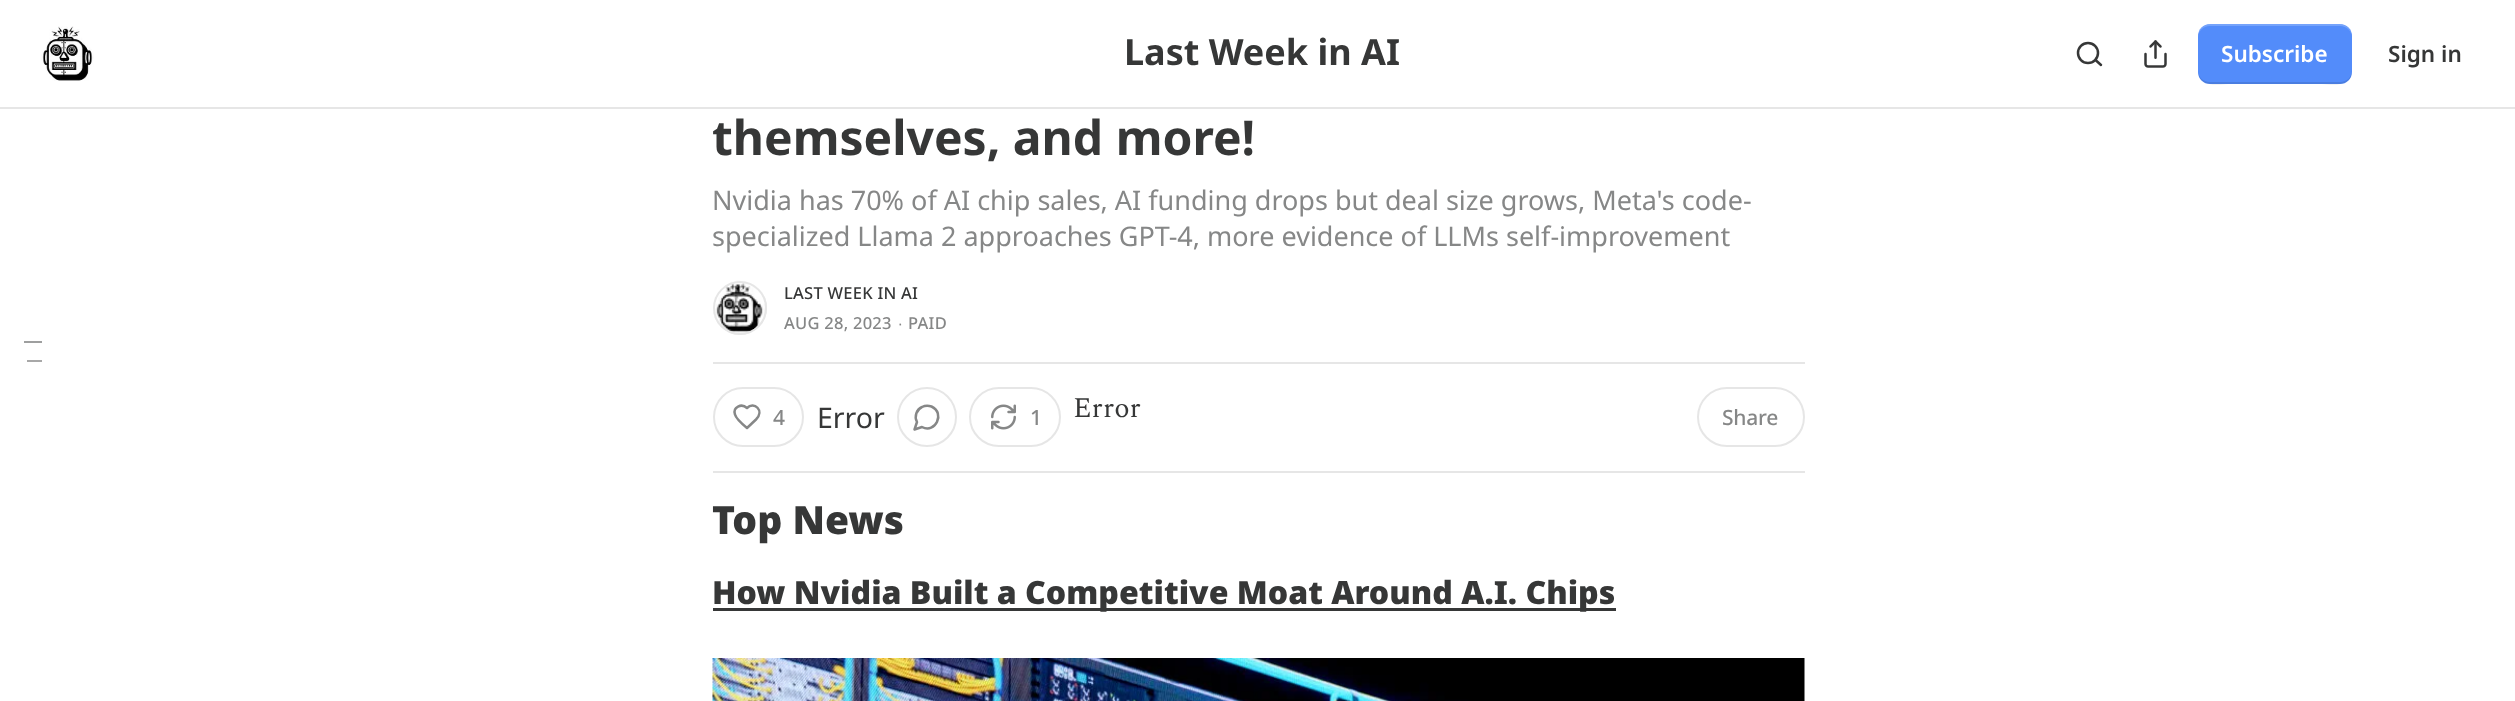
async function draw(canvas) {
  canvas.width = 2515
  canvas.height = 701
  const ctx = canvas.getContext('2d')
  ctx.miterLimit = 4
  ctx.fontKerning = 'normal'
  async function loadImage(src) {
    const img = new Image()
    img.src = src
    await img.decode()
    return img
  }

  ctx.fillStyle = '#fff'
  ctx.fillRect(0, 0, 2515, 701)
  ctx.fillStyle = '#e6e6e6'
  ctx.fillRect(0, 107, 2515, 2)
  ctx.drawImage(await loadImage('image0.png'), 41, 26, 53, 55)
  ctx.font = 'bold 36px Noto Sans'
  ctx.fillStyle = '#363737'
  ctx.fillText('Last Week in AI', 1124, 65)
  ctx.beginPath()
  ctx.arc(2088, 53, 10, 0, 2 * Math.PI)
  ctx.strokeStyle = '#363737'
  ctx.lineWidth = 2.5
  ctx.stroke()
  ctx.beginPath()
  ctx.moveTo(2101, 65)
  ctx.lineTo(2095.5, 60)
  ctx.lineCap = 'round'
  ctx.lineJoin = 'round'
  ctx.stroke()
  ctx.drawImage(await loadImage('image1.png'), 2144, 40, 23, 28)
  ctx.fillStyle = '#538cfa'
  ctx.beginPath()
  ctx.roundRect(2198, 24, 154, 60, 12)
  ctx.fill()
  ctx.fillStyle = '#0000001a'
  ctx.beginPath()
  ctx.moveTo(2198, 70)
  ctx.bezierCurveTo(2198, 89, 2218, 84, 2232, 84)
  ctx.lineTo(2318, 84)
  ctx.bezierCurveTo(2332, 84, 2352, 89, 2352, 70)
  ctx.bezierCurveTo(2352, 77, 2347, 82, 2340, 82)
  ctx.lineTo(2210, 82)
  ctx.bezierCurveTo(2203, 82, 2198, 77, 2198, 70)
  ctx.closePath()
  ctx.fill()
  ctx.fillStyle = '#ffffff33'
  ctx.beginPath()
  ctx.moveTo(2210, 26)
  ctx.lineTo(2340, 26)
  ctx.bezierCurveTo(2347, 26, 2352, 31, 2352, 38)
  ctx.bezierCurveTo(2352, 19, 2332, 24, 2318, 24)
  ctx.lineTo(2232, 24)
  ctx.bezierCurveTo(2218, 24, 2198, 19, 2198, 38)
  ctx.bezierCurveTo(2198, 31, 2203, 26, 2210, 26)
  ctx.closePath()
  ctx.fill()
  ctx.font = '600 22.5px Noto Sans'
  ctx.fillStyle = '#fff'
  ctx.fillText('Subscribe', 2221, 62)
  ctx.fillStyle = '#363737'
  ctx.fillText('Sign in', 2388, 62)
  ctx.font = 'bold 48px Noto Sans'
  ctx.fillText('themselves, and more!', 712, 155)
  ctx.font = '27px Noto Sans'
  ctx.fillStyle = '#868787'
  ctx.fillText('Nvidia has 70% of AI chip sales, AI funding drops but deal size grows, Meta\'s code-', 712, 210)
  ctx.fillText('specialized Llama 2 approaches GPT-4, more evidence of LLMs self-improvement', 712, 246)
  ctx.beginPath()
  ctx.arc(740, 308, 26, 0, 2 * Math.PI)
  ctx.strokeStyle = '#e6e6e6'
  ctx.lineWidth = 2
  ctx.stroke()
  ctx.drawImage(await loadImage('image2.png'), 713, 280, 53, 53)
  ctx.beginPath()
  ctx.arc(740, 308, 26, 0, 2 * Math.PI)
  ctx.stroke()
  ctx.letterSpacing = '0.25px'
  ctx.font = '500 16.5px Noto Sans'
  ctx.fillStyle = '#363737'
  ctx.fillText('LAST WEEK IN AI', 784, 299)
  ctx.fillStyle = '#868787'
  ctx.fillText('AUG 28, 2023', 784, 329)
  ctx.font = '16.5px Liberation Sans'
  ctx.fillText('∙', 898, 329)
  ctx.font = '500 16.5px Noto Sans'
  ctx.fillText('PAID', 908, 329)
  ctx.fillStyle = '#e6e6e6'
  ctx.fillRect(713, 362, 1092, 2)
  ctx.fillRect(713, 471, 1092, 2)
  ctx.beginPath()
  ctx.roundRect(714, 388, 89, 58, 29)
  ctx.lineJoin = 'miter'
  ctx.stroke()
  ctx.beginPath()
  ctx.moveTo(756, 419.5)
  ctx.bezierCurveTo(765, 410.5, 754, 401, 747, 408)
  ctx.bezierCurveTo(741.5, 403, 732.5, 407, 735, 414.5)
  ctx.bezierCurveTo(736, 418.5, 744, 425.5, 747, 428)
  ctx.closePath()
  ctx.strokeStyle = '#868787'
  ctx.lineWidth = 2.5
  ctx.lineJoin = 'round'
  ctx.stroke()
  ctx.letterSpacing = '-0.25px'
  ctx.font = '500 21px Noto Sans'
  ctx.fillStyle = '#868787'
  ctx.fillText('4', 773, 425)
  ctx.letterSpacing = '0px'
  ctx.font = '28.5px Noto Sans'
  ctx.fillStyle = '#363737'
  ctx.fillText('Error', 817, 428)
  ctx.beginPath()
  ctx.arc(927, 417, 29, 0, 2 * Math.PI)
  ctx.strokeStyle = '#e6e6e6'
  ctx.lineWidth = 2
  ctx.stroke()
  ctx.beginPath()
  ctx.moveTo(922, 427)
  ctx.bezierCurveTo(935.5, 434, 945.5, 413, 931.5, 406.5)
  ctx.bezierCurveTo(928.5, 405.5, 925, 405.5, 922, 407)
  ctx.bezierCurveTo(916.5, 409.5, 914, 416.5, 917, 422)
  ctx.lineTo(914.5, 429.5)
  ctx.closePath()
  ctx.strokeStyle = '#868787'
  ctx.lineWidth = 2.5
  ctx.stroke()
  ctx.beginPath()
  ctx.roundRect(970, 388, 90, 58, 29)
  ctx.strokeStyle = '#e6e6e6'
  ctx.lineWidth = 2
  ctx.lineJoin = 'miter'
  ctx.stroke()
  ctx.drawImage(await loadImage('image3.png'), 991, 404, 25, 26)
  ctx.letterSpacing = '-0.25px'
  ctx.font = '500 21px Noto Sans'
  ctx.fillStyle = '#868787'
  ctx.fillText('1', 1030, 425)
  ctx.letterSpacing = '0px'
  ctx.font = '28.5px Spectral'
  ctx.fillStyle = '#363737'
  ctx.fillText('Error', 1073, 417)
  ctx.beginPath()
  ctx.roundRect(1698, 388, 106, 58, 29)
  ctx.stroke()
  ctx.letterSpacing = '-0.25px'
  ctx.font = '500 21px Noto Sans'
  ctx.fillStyle = '#868787'
  ctx.fillText('Share', 1722, 425)
  ctx.fillStyle = '#9e9f9f'
  ctx.fillRect(24, 341, 18, 2)
  ctx.fillStyle = '#a8a8a8'
  ctx.fillRect(27, 360, 15, 2)
  ctx.letterSpacing = '0px'
  ctx.font = '900 39px Noto Sans'
  ctx.fillStyle = '#363737'
  ctx.fillText('Top News', 712, 534)
  ctx.fillRect(713, 608, 903, 3)
  ctx.font = '900 32.05px Noto Sans'
  ctx.fillText('How Nvidia Built a Competitive Moat Around A.I. Chips', 712, 604)
  ctx.drawImage(await loadImage('image4.png'), 712, 658, 1093, 43)
}

draw(document.querySelector('canvas'))
